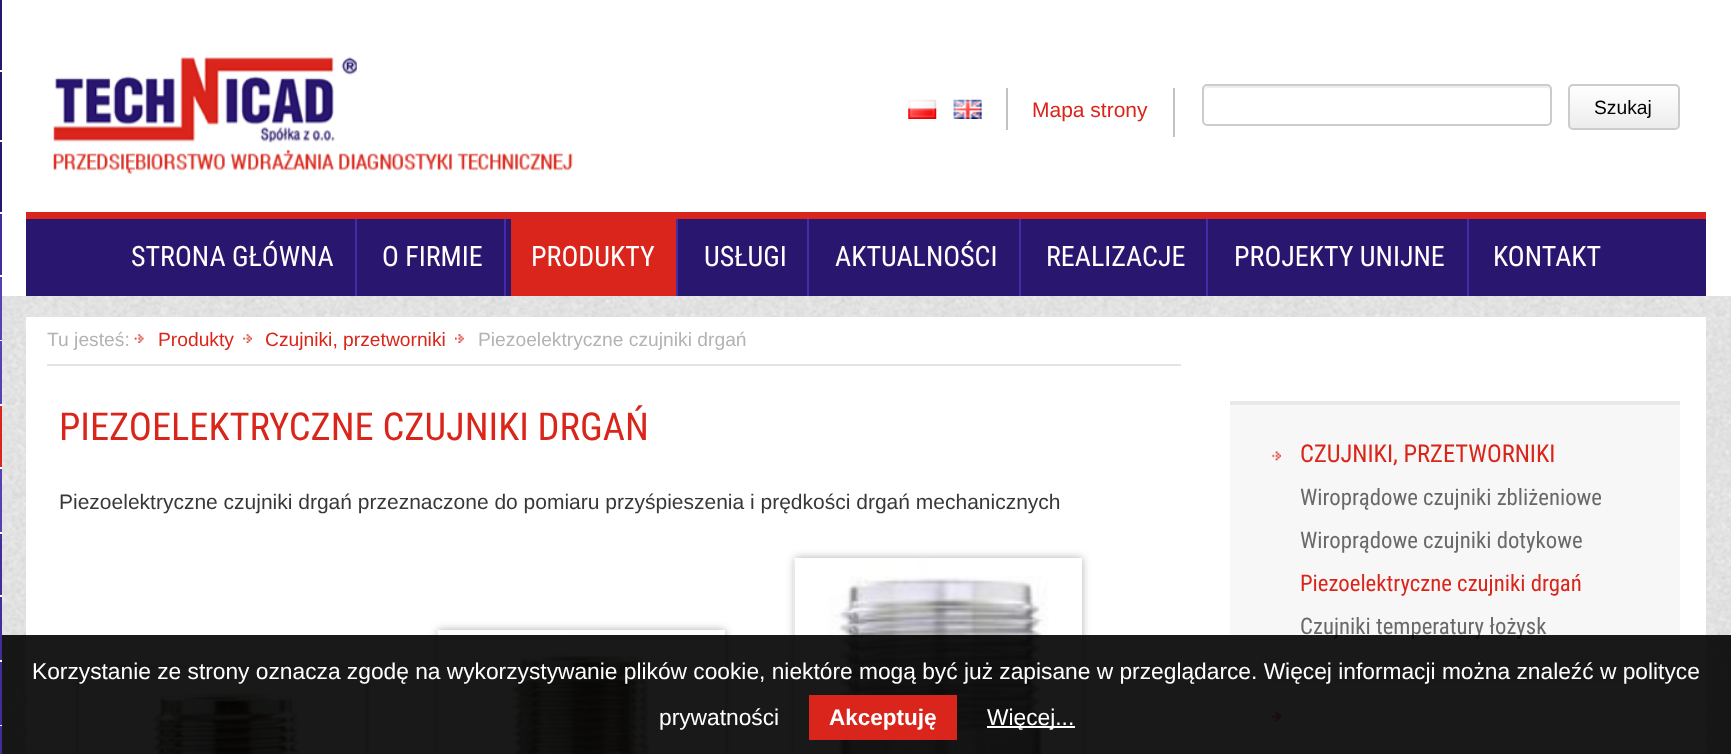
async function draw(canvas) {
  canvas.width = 1731
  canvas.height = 754
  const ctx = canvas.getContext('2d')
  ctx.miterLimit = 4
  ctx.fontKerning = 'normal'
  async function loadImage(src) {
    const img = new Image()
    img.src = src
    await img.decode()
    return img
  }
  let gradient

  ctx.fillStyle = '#fff'
  ctx.fillRect(0, 0, 1731, 754)
  ctx.drawImage(await loadImage('image0.png'), 2, 296, 1729, 458)
  ctx.fillStyle = '#29166f'
  ctx.fillRect(0, 0, 2, 214)
  ctx.fillStyle = '#fff'
  ctx.fillRect(0, 70, 2, 2)
  ctx.fillRect(0, 140, 2, 2)
  ctx.fillRect(0, 212, 2, 2)
  ctx.fillStyle = '#442d99'
  ctx.fillRect(0, 214, 2, 63)
  ctx.fillStyle = '#fff'
  ctx.fillRect(0, 275, 2, 2)
  ctx.fillStyle = '#5940b2'
  ctx.fillRect(0, 277, 2, 129)
  ctx.fillStyle = '#fff'
  ctx.fillRect(0, 340, 2, 1)
  ctx.fillRect(0, 404, 2, 2)
  ctx.fillStyle = '#da251c'
  ctx.fillRect(0, 406, 2, 63)
  ctx.fillStyle = '#fff'
  ctx.fillRect(0, 467, 2, 2)
  ctx.fillStyle = '#5940b2'
  ctx.fillRect(0, 469, 2, 65)
  ctx.fillStyle = '#fff'
  ctx.fillRect(0, 532, 2, 2)
  ctx.fillStyle = '#442d99'
  ctx.fillRect(0, 534, 2, 220)
  ctx.fillStyle = '#fff'
  ctx.fillRect(0, 595, 2, 2)
  ctx.fillRect(0, 660, 2, 2)
  ctx.fillRect(0, 725, 2, 1)
  ctx.drawImage(await loadImage('image1.png'), 53, 57, 520, 117)
  ctx.fillStyle = '#c2c2c2'
  ctx.fillRect(1006, 88, 2, 42)
  ctx.drawImage(await loadImage('image2.png'), 908, 99, 29, 20)
  ctx.drawImage(await loadImage('image3.png'), 953, 99, 29, 20)
  ctx.fillRect(1173, 88, 2, 49)
  ctx.font = '21px Liberation Sans'
  ctx.fillStyle = '#d9251a'
  ctx.fillText('Mapa strony', 1032, 117)
  ctx.fillStyle = '#eee'
  ctx.beginPath()
  ctx.moveTo(1208, 88)
  ctx.lineTo(1547, 88)
  ctx.bezierCurveTo(1549, 88, 1550, 89, 1550, 91)
  ctx.lineTo(1550, 123)
  ctx.bezierCurveTo(1551, 122, 1551, 121, 1551, 120)
  ctx.lineTo(1551, 90)
  ctx.bezierCurveTo(1551, 88, 1549, 86, 1547, 86)
  ctx.lineTo(1208, 86)
  ctx.bezierCurveTo(1206, 86, 1204, 88, 1204, 90)
  ctx.lineTo(1204, 91)
  ctx.bezierCurveTo(1204, 89, 1206, 88, 1208, 88)
  ctx.closePath()
  ctx.fill()
  ctx.beginPath()
  ctx.roundRect(1203, 85, 348, 40, 4)
  ctx.strokeStyle = '#ccc'
  ctx.lineWidth = 2
  ctx.stroke()
  ctx.save()
  ctx.beginPath()
  ctx.roundRect(1568, 84, 112, 46, 5)
  ctx.clip()
  gradient = ctx.createLinearGradient(1624, 86, 1624, 128)
  gradient.addColorStop(0, '#fff')
  gradient.addColorStop(1, '#ececec')
  ctx.fillStyle = gradient
  ctx.fillRect(1568, 86, 112, 42)
  ctx.restore()
  ctx.beginPath()
  ctx.roundRect(1569, 85, 110, 44, 4)
  ctx.stroke()
  ctx.font = '19.25px Liberation Sans'
  ctx.fillStyle = '#000'
  ctx.fillText('Szukaj', 1594, 114)
  ctx.fillStyle = '#29166f'
  ctx.fillRect(26, 219, 1680, 77)
  ctx.fillStyle = '#da251c'
  ctx.fillRect(26, 212, 1680, 7)
  ctx.fillStyle = '#462ba8'
  ctx.fillRect(355, 219, 2, 77)
  ctx.font = '28px Roboto Condensed'
  ctx.fillStyle = '#fff'
  ctx.fillText('STRONA GŁÓWNA', 131, 266)
  ctx.fillStyle = '#462ba8'
  ctx.fillRect(504, 219, 2, 77)
  ctx.fillStyle = '#fff'
  ctx.fillText('O FIRMIE', 382, 266)
  ctx.fillStyle = '#462ba8'
  ctx.fillRect(676, 219, 2, 77)
  ctx.fillStyle = '#da251c'
  ctx.fillRect(511, 219, 165, 77)
  ctx.fillStyle = '#fff'
  ctx.fillText('PRODUKTY', 531, 266)
  ctx.fillStyle = '#462ba8'
  ctx.fillRect(807, 219, 2, 77)
  ctx.fillStyle = '#fff'
  ctx.fillText('USŁUGI', 704, 266)
  ctx.fillStyle = '#462ba8'
  ctx.fillRect(1019, 219, 2, 77)
  ctx.fillStyle = '#fff'
  ctx.fillText('AKTUALNOŚCI', 835, 266)
  ctx.fillStyle = '#462ba8'
  ctx.fillRect(1206, 219, 2, 77)
  ctx.fillStyle = '#fff'
  ctx.fillText('REALIZACJE', 1046, 266)
  ctx.fillStyle = '#462ba8'
  ctx.fillRect(1467, 219, 2, 77)
  ctx.fillStyle = '#fff'
  ctx.fillText('PROJEKTY UNIJNE', 1234, 266)
  ctx.fillText('KONTAKT', 1493, 266)
  ctx.fillRect(26, 317, 1680, 437)
  ctx.fillStyle = '#e4e4e4'
  ctx.fillRect(47, 364, 1134, 2)
  ctx.font = '19.25px Liberation Sans'
  ctx.fillStyle = '#b3b3b3'
  ctx.fillText('Tu jesteś:', 47, 346)
  ctx.drawImage(await loadImage('image4.png'), 134, 334, 10, 9)
  ctx.fillStyle = '#d9251a'
  ctx.fillText('Produkty', 158, 346)
  ctx.drawImage(await loadImage('image5.png'), 243, 334, 9, 9)
  ctx.fillText('Czujniki, przetworniki', 265, 346)
  ctx.drawImage(await loadImage('image6.png'), 455, 334, 9, 9)
  ctx.fillStyle = '#b3b3b3'
  ctx.fillText('Piezoelektryczne czujniki drgań', 478, 346)
  ctx.font = '38.5px Roboto Condensed'
  ctx.fillStyle = '#d9251a'
  ctx.fillText('PIEZOELEKTRYCZNE CZUJNIKI DRGAŃ', 59, 440)
  ctx.font = '21px Liberation Sans'
  ctx.fillStyle = '#383838'
  ctx.fillText('Piezoelektryczne czujniki drgań przeznaczone do pomiaru przyśpieszenia i prędkości drgań mechanicznych', 59, 509)
  ctx.fillStyle = '#32323266'
  ctx.filter = 'blur(4.5px)'
  ctx.beginPath()
  ctx.rect(79, 669, 287, 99)
  ctx.fill()
  ctx.filter = 'none'
  ctx.drawImage(await loadImage('image7.png'), 79, 668, 288, 86)
  ctx.save()
  ctx.beginPath()
  ctx.moveTo(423, 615)
  ctx.lineTo(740, 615)
  ctx.lineTo(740, 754)
  ctx.lineTo(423, 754)
  ctx.closePath()
  ctx.moveTo(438, 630)
  ctx.lineTo(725, 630)
  ctx.lineTo(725, 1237)
  ctx.lineTo(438, 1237)
  ctx.closePath()
  ctx.clip('evenodd')
  ctx.filter = 'blur(4.5px)'
  ctx.beginPath()
  ctx.rect(438, 630, 287, 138)
  ctx.fill()
  ctx.filter = 'none'
  ctx.restore()
  ctx.drawImage(await loadImage('image8.png'), 436, 630, 289, 124)
  ctx.save()
  ctx.beginPath()
  ctx.moveTo(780, 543)
  ctx.lineTo(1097, 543)
  ctx.lineTo(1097, 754)
  ctx.lineTo(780, 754)
  ctx.closePath()
  ctx.moveTo(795, 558)
  ctx.lineTo(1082, 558)
  ctx.lineTo(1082, 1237)
  ctx.lineTo(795, 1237)
  ctx.closePath()
  ctx.clip('evenodd')
  ctx.filter = 'blur(4.5px)'
  ctx.beginPath()
  ctx.rect(795, 558, 287, 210)
  ctx.fill()
  ctx.filter = 'none'
  ctx.restore()
  ctx.drawImage(await loadImage('image9.png'), 793, 558, 289, 196)
  ctx.fillStyle = '#f7f7f7'
  ctx.fillRect(1230, 405, 450, 349)
  ctx.fillStyle = '#e8e8e8'
  ctx.fillRect(1230, 401, 450, 4)
  ctx.drawImage(await loadImage('image10.png'), 1272, 451, 9, 10)
  ctx.font = '24.5px Roboto Condensed'
  ctx.fillStyle = '#d9251a'
  ctx.fillText('CZUJNIKI, PRZETWORNIKI', 1300, 462)
  ctx.fillStyle = '#e8e8e8'
  ctx.fillRect(1272, 677, 366, 4)
  ctx.font = '22.75px Roboto Condensed'
  ctx.fillStyle = '#696969'
  ctx.fillText('Wiroprądowe czujniki zbliżeniowe', 1300, 505)
  ctx.fillText('Wiroprądowe czujniki dotykowe', 1300, 548)
  ctx.fillStyle = '#d9251a'
  ctx.fillText('Piezoelektryczne czujniki drgań', 1300, 591)
  ctx.fillStyle = '#696969'
  ctx.fillText('Czujniki temperatury łożysk', 1300, 634)
  ctx.drawImage(await loadImage('image11.png'), 1272, 712, 9, 9)
  ctx.fillStyle = '#000000e6'
  ctx.fillRect(2, 635, 1729, 119)
  ctx.font = '22.75px Liberation Sans'
  ctx.fillStyle = '#fff'
  ctx.fillText('Korzystanie ze strony oznacza zgodę na wykorzystywanie plików cookie, niektóre mogą być już zapisane w przeglądarce. Więcej informacji można znaleźć w polityce', 32, 679)
  ctx.fillText('prywatności', 659, 725)
  ctx.fillStyle = '#da251c'
  ctx.fillRect(809, 695, 148, 45)
  ctx.font = 'bold 22.5px Liberation Sans'
  ctx.fillStyle = '#fff'
  ctx.fillText('Akceptuję', 829, 725)
  ctx.fillRect(987, 726, 88, 2)
  ctx.font = '22.75px Liberation Sans'
  ctx.fillText('Więcej...', 987, 725)
}

draw(document.querySelector('canvas'))
